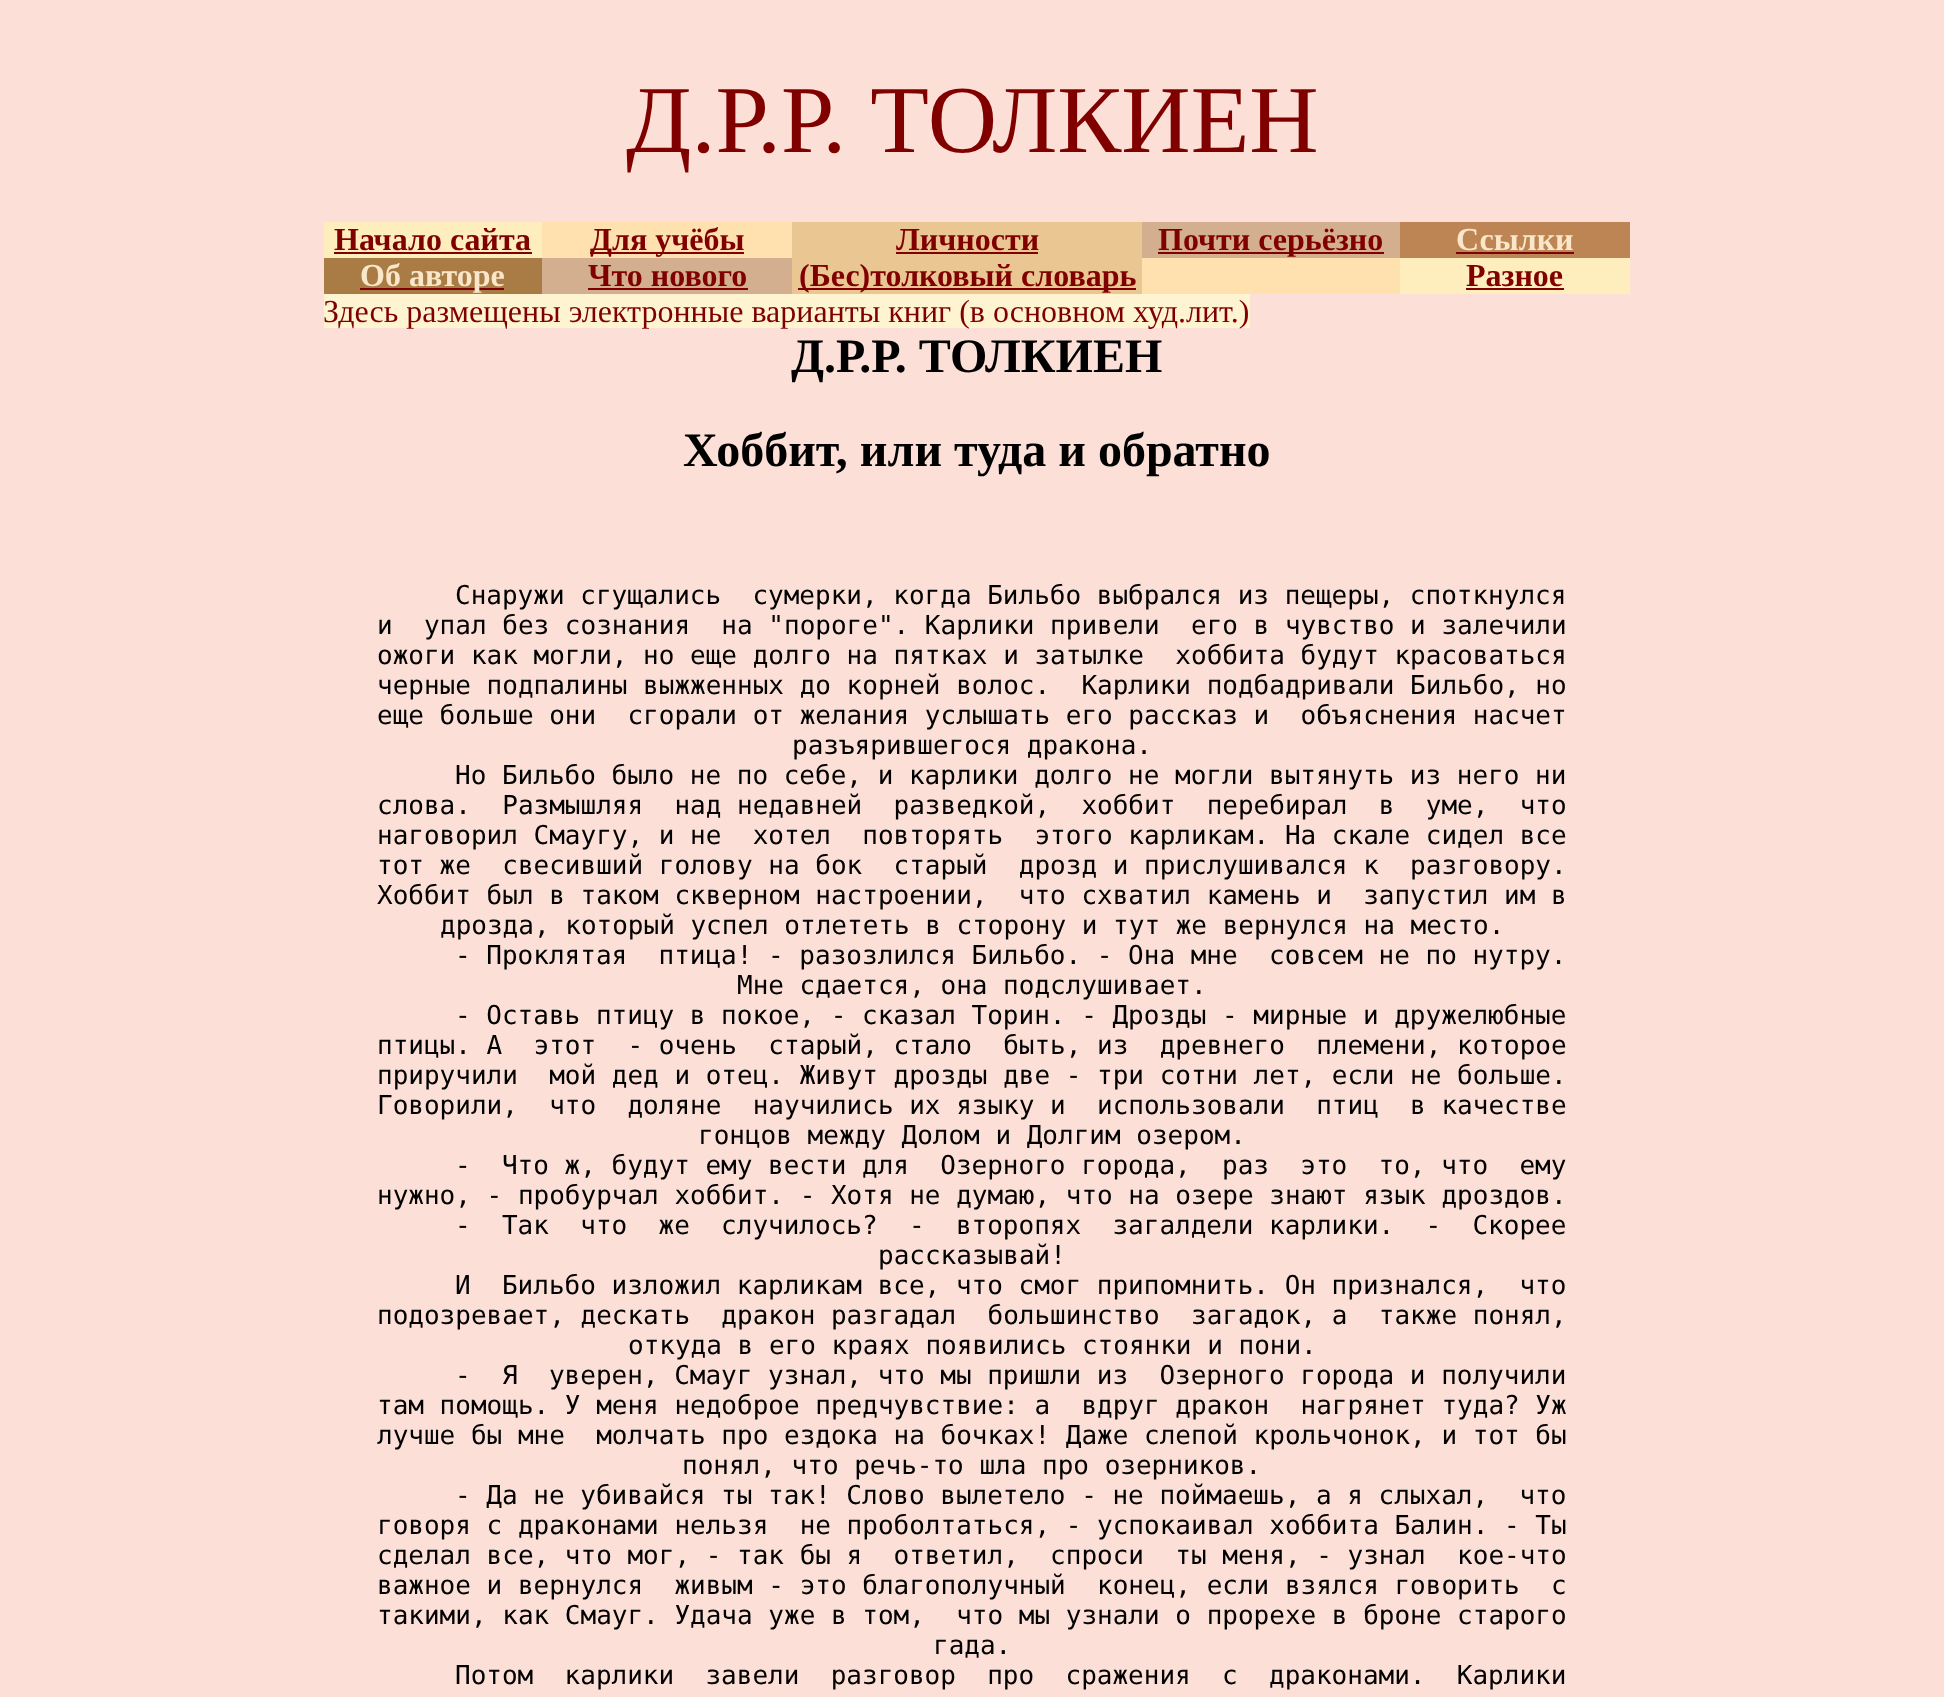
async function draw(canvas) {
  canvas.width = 1944
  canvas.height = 1697
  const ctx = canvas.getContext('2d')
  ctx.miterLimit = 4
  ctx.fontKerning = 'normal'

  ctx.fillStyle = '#fcdfd6'
  ctx.fillRect(0, 0, 1944, 1697)
  ctx.font = '96px Liberation Serif'
  ctx.fillStyle = '#800000'
  ctx.fillText('Д.Р.Р. ТОЛКИЕН', 626, 152)
  ctx.fillStyle = '#ffeebd'
  ctx.fillRect(324, 222, 218, 36)
  ctx.font = 'bold 32px Liberation Serif'
  ctx.fillStyle = '#800000'
  ctx.fillText('Начало сайта', 334, 250)
  ctx.fillRect(334, 252, 198, 2)
  ctx.fillStyle = '#ffe1af'
  ctx.fillRect(542, 222, 250, 36)
  ctx.fillStyle = '#800000'
  ctx.fillRect(590, 252, 154, 2)
  ctx.fillText('Для учёбы', 590, 250)
  ctx.fillStyle = '#eac693'
  ctx.fillRect(792, 222, 350, 72)
  ctx.fillStyle = '#800000'
  ctx.fillText('Личности', 896, 250)
  ctx.fillRect(896, 252, 142, 2)
  ctx.fillStyle = '#d3af8f'
  ctx.fillRect(1142, 222, 258, 36)
  ctx.fillStyle = '#800000'
  ctx.fillRect(1158, 252, 226, 2)
  ctx.fillText('Почти серьёзно', 1158, 250)
  ctx.fillStyle = '#bd8554'
  ctx.fillRect(1400, 222, 230, 36)
  ctx.fillStyle = '#fae7c9'
  ctx.fillText('Ссылки', 1456, 250)
  ctx.fillStyle = '#800000'
  ctx.fillRect(1456, 252, 118, 2)
  ctx.fillStyle = '#a97b45'
  ctx.fillRect(324, 258, 218, 36)
  ctx.fillStyle = '#800000'
  ctx.fillRect(360, 288, 144, 2)
  ctx.fillStyle = '#fae7c9'
  ctx.fillText('Об авторе', 360, 286)
  ctx.fillStyle = '#d3af8f'
  ctx.fillRect(542, 258, 250, 36)
  ctx.fillStyle = '#800000'
  ctx.fillText('Что нового', 588, 286)
  ctx.fillRect(588, 288, 160, 2)
  ctx.fillRect(798, 288, 338, 2)
  ctx.fillText('(Бес)толковый словарь', 799, 286)
  ctx.fillStyle = '#ffe1af'
  ctx.fillRect(1142, 258, 258, 36)
  ctx.fillStyle = '#ffeebd'
  ctx.fillRect(1400, 258, 230, 36)
  ctx.fillStyle = '#800000'
  ctx.fillText('Разное', 1466, 286)
  ctx.fillRect(1466, 288, 98, 2)
  ctx.fillStyle = '#fff4d2'
  ctx.fillRect(324, 294, 926, 34)
  ctx.font = '32px Liberation Serif'
  ctx.fillStyle = '#800000'
  ctx.fillText('Здесь размещены электронные варианты книг (в основном худ.лит.)', 323, 322)
  ctx.font = 'bold 48px Liberation Serif'
  ctx.fillStyle = '#000'
  ctx.fillText('Д.Р.Р. ТОЛКИЕН', 791, 372)
  ctx.fillText('Хоббит, или туда и обратно', 683, 466)
  ctx.font = '26px DejaVu Sans Mono'
  ctx.fillText('Снаружи сгущались  сумерки, когда Бильбо выбрался из пещеры, споткнулся', 455, 604)
  ctx.fillText('и  упал без сознания  на "пороге". Карлики привели  его в чувство и залечили', 377, 634)
  ctx.fillText('ожоги как могли, но еще долго на пятках и затылке  хоббита будут красоваться', 377, 664)
  ctx.fillText('черные подпалины выжженных до корней волос.  Карлики подбадривали Бильбо, но', 377, 694)
  ctx.fillText('еще больше они  сгорали от желания услышать его рассказ и  объяснения насчет', 377, 724)
  ctx.fillText('разъярившегося дракона.', 792, 754)
  ctx.fillText('Но Бильбо было не по себе, и карлики долго не могли вытянуть из него ни', 455, 784)
  ctx.fillText('слова.  Размышляя  над недавней  разведкой,  хоббит  перебирал  в  уме,  что', 377, 814)
  ctx.fillText('наговорил Смаугу, и не  хотел  повторять  этого карликам. На скале сидел все', 377, 844)
  ctx.fillText('тот же  свесивший голову на бок  старый  дрозд и прислушивался к  разговору.', 377, 874)
  ctx.fillText('Хоббит был в таком скверном настроении,  что схватил камень и  запустил им в', 377, 904)
  ctx.fillText('дрозда, который успел отлететь в сторону и тут же вернулся на место.', 440, 934)
  ctx.fillText('- Проклятая  птица! - разозлился Бильбо. - Она мне  совсем не по нутру.', 455, 964)
  ctx.fillText('Мне сдается, она подслушивает.', 737, 994)
  ctx.fillText('- Оставь птицу в покое, - сказал Торин. - Дрозды - мирные и дружелюбные', 455, 1024)
  ctx.fillText('птицы. А  этот  - очень  старый, стало  быть, из  древнего  племени, которое', 377, 1054)
  ctx.fillText('приручили  мой дед и отец. Живут дрозды две - три сотни лет, если не больше.', 377, 1084)
  ctx.fillText('Говорили,  что  доляне  научились их языку и  использовали  птиц  в качестве', 377, 1114)
  ctx.fillText('гонцов между Долом и Долгим озером.', 698, 1144)
  ctx.fillText('-  Что ж, будут ему вести для  Озерного города,  раз  это  то, что  ему', 455, 1174)
  ctx.fillText('нужно, - пробурчал хоббит. - Хотя не думаю, что на озере знают язык дроздов.', 377, 1204)
  ctx.fillText('-  Так  что  же  случилось?  -  второпях  загалдели карлики.  -  Скорее', 455, 1234)
  ctx.fillText('рассказывай!', 878, 1264)
  ctx.fillText('И  Бильбо изложил карликам все, что смог припомнить. Он признался,  что', 455, 1294)
  ctx.fillText('подозревает, дескать  дракон разгадал  большинство  загадок, а  также понял,', 377, 1324)
  ctx.fillText('откуда в его краях появились стоянки и пони.', 628, 1354)
  ctx.fillText('-  Я  уверен, Смауг узнал, что мы пришли из  Озерного города и получили', 455, 1384)
  ctx.fillText('там помощь. У меня недоброе предчувствие: а  вдруг дракон  нагрянет туда? Уж', 377, 1414)
  ctx.fillText('лучше бы мне  молчать про ездока на бочках! Даже слепой крольчонок, и тот бы', 377, 1444)
  ctx.fillText('понял, что речь-то шла про озерников.', 682, 1474)
  ctx.fillText('- Да не убивайся ты так! Слово вылетело - не поймаешь, а я слыхал,  что', 455, 1504)
  ctx.fillText('говоря с драконами нельзя  не проболтаться, - успокаивал хоббита Балин. - Ты', 377, 1534)
  ctx.fillText('сделал все, что мог, - так бы я  ответил,  спроси  ты меня, - узнал  кое-что', 377, 1564)
  ctx.fillText('важное и вернулся  живым - это благополучный  конец, если взялся говорить  с', 377, 1594)
  ctx.fillText('такими, как Смауг. Удача уже в том,  что мы узнали о прорехе в броне старого', 377, 1624)
  ctx.fillText('гада.', 933, 1654)
  ctx.fillText('Потом  карлики  завели  разговор  про  сражения  с  драконами.  Карлики', 455, 1684)
}

draw(document.querySelector('canvas'))
